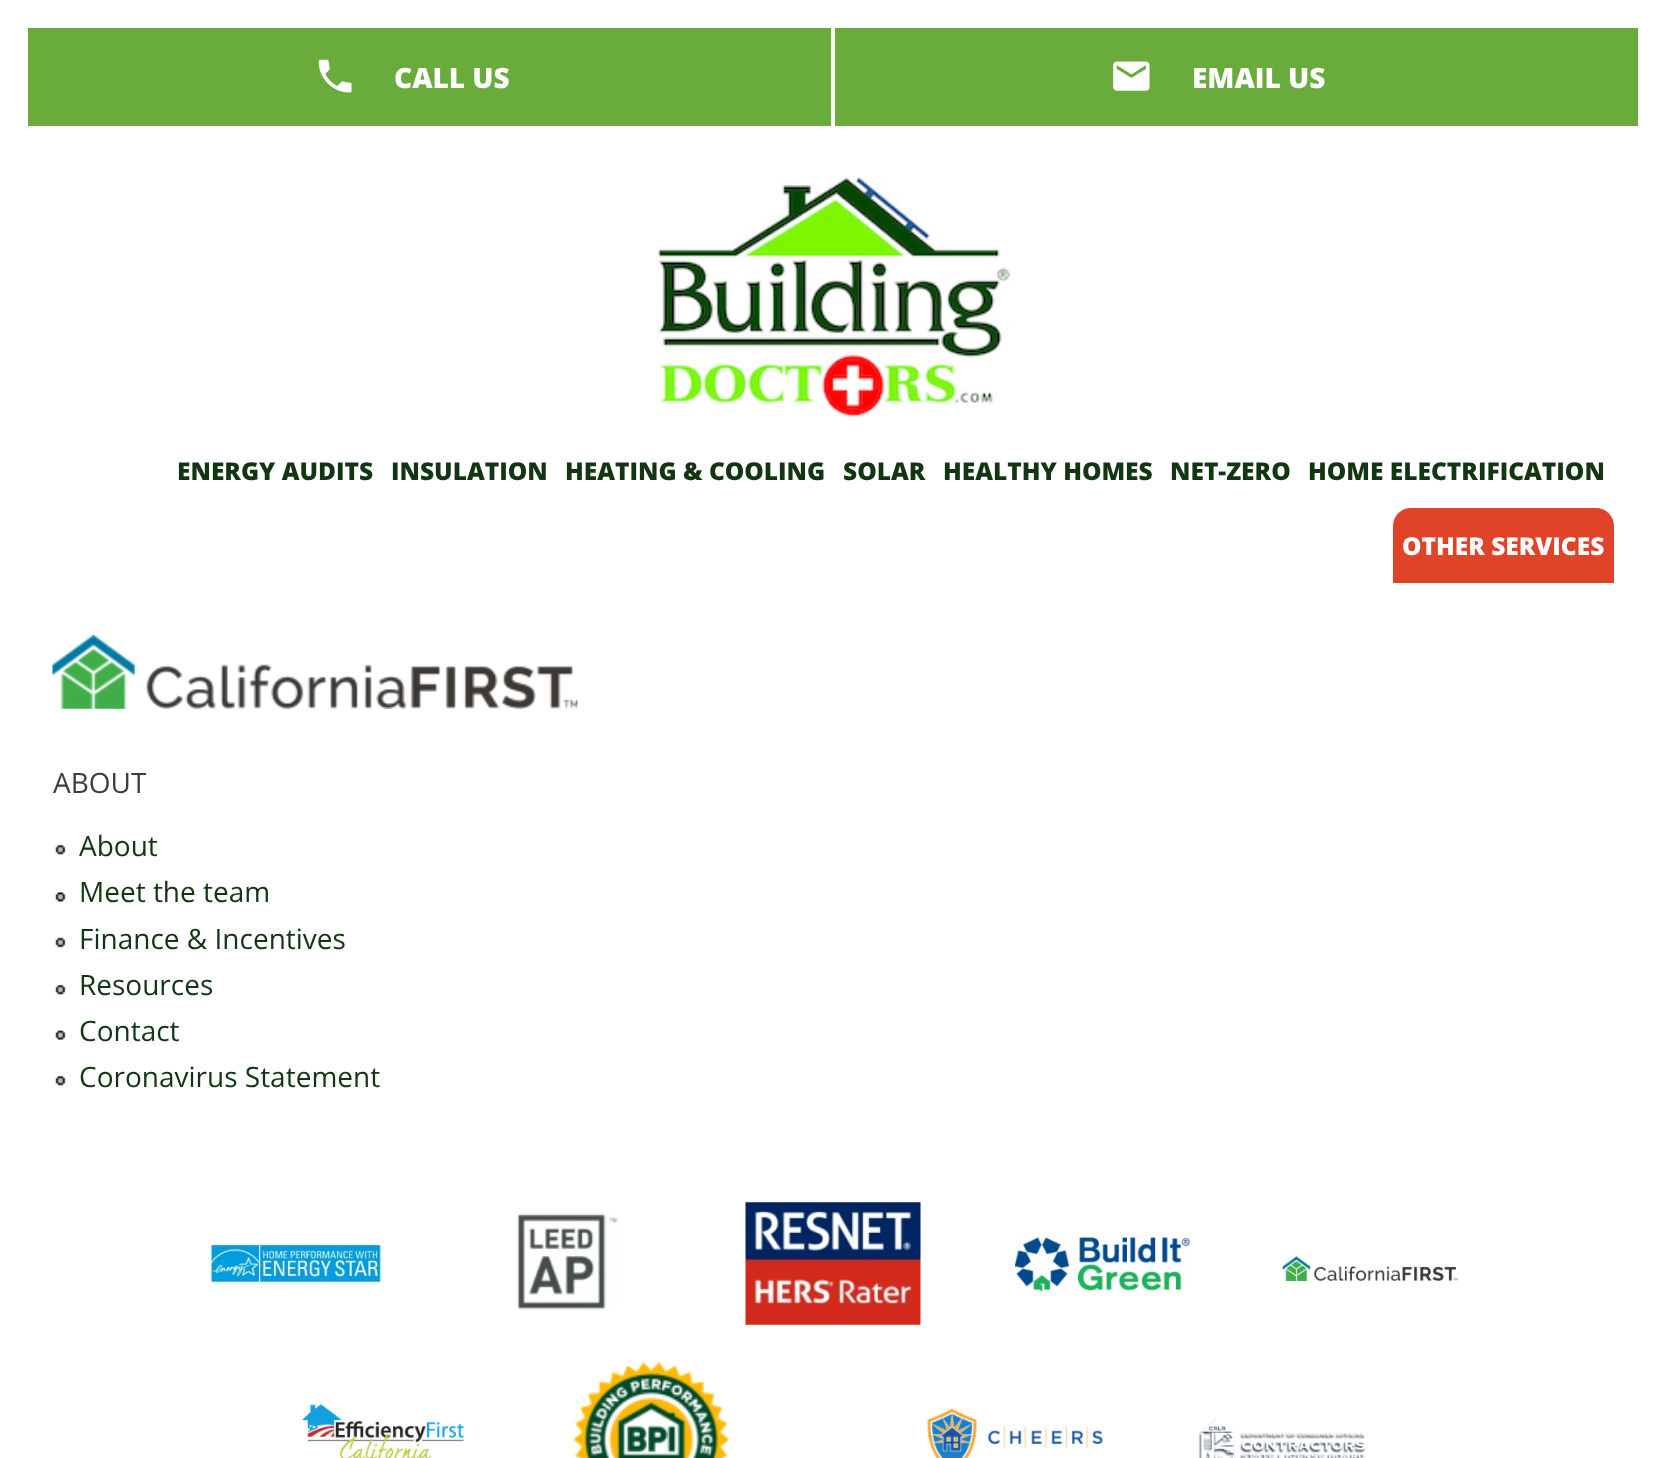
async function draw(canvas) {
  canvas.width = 1665
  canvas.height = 1458
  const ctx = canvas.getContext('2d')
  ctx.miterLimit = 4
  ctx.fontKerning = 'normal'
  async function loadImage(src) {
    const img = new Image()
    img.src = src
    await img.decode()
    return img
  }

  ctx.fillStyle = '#fff'
  ctx.fillRect(0, 0, 1665, 1458)
  ctx.fillStyle = '#69ac3c'
  ctx.fillRect(28, 28, 803, 98)
  ctx.drawImage(await loadImage('image0.png'), 318, 59, 34, 34)
  ctx.font = '800 28px Open Sans'
  ctx.fillStyle = '#fff'
  ctx.fillText('CALL US', 394, 88)
  ctx.fillStyle = '#69ac3c'
  ctx.fillRect(835, 28, 803, 98)
  ctx.drawImage(await loadImage('image1.png'), 1113, 61, 37, 30)
  ctx.fillStyle = '#fff'
  ctx.fillText('EMAIL US', 1192, 88)
  ctx.drawImage(await loadImage('image2.png'), 657, 176, 354, 241)
  ctx.font = '800 24.5px Open Sans'
  ctx.fillStyle = '#123512'
  ctx.fillText('ENERGY AUDITS', 177, 480)
  ctx.fillText('INSULATION', 391, 480)
  ctx.fillText('HEATING & COOLING', 565, 480)
  ctx.fillText('SOLAR', 843, 480)
  ctx.fillText('HEALTHY HOMES', 943, 480)
  ctx.fillText('NET-ZERO', 1170, 480)
  ctx.fillText('HOME ELECTRIFICATION', 1308, 480)
  ctx.fillStyle = '#e04328'
  ctx.beginPath()
  ctx.roundRect(1393, 508, 221, 75, [18, 18, 0, 0])
  ctx.fill()
  ctx.fillStyle = '#fff'
  ctx.fillText('OTHER SERVICES', 1402, 555)
  ctx.drawImage(await loadImage('image3.png'), 52, 635, 526, 74)
  ctx.font = '28px Open Sans'
  ctx.fillStyle = '#3d3d3d'
  ctx.fillText('ABOUT', 53, 793)
  ctx.drawImage(await loadImage('image4.png'), 55, 844, 11, 11)
  ctx.fillStyle = '#123512'
  ctx.fillText('About', 79, 856)
  ctx.drawImage(await loadImage('image5.png'), 55, 892, 11, 10)
  ctx.fillText('Meet the team', 79, 902)
  ctx.drawImage(await loadImage('image6.png'), 55, 937, 11, 11)
  ctx.fillText('Finance & Incentives', 79, 949)
  ctx.drawImage(await loadImage('image4.png'), 55, 984, 11, 11)
  ctx.fillText('Resources', 79, 995)
  ctx.drawImage(await loadImage('image7.png'), 55, 1030, 11, 10)
  ctx.fillText('Contact', 79, 1041)
  ctx.drawImage(await loadImage('image4.png'), 55, 1075, 11, 11)
  ctx.fillText('Coronavirus Statement', 79, 1087)
  ctx.drawImage(await loadImage('image8.png'), 209, 1243, 173, 41)
  ctx.drawImage(await loadImage('image9.png'), 517, 1213, 101, 97)
  ctx.drawImage(await loadImage('image10.png'), 745, 1202, 176, 123)
  ctx.drawImage(await loadImage('image11.png'), 1015, 1237, 175, 55)
  ctx.drawImage(await loadImage('image12.png'), 1282, 1256, 176, 25)
  ctx.drawImage(await loadImage('image13.png'), 302, 1404, 162, 54)
  ctx.drawImage(await loadImage('image14.png'), 573, 1361, 157, 97)
  ctx.drawImage(await loadImage('image15.png'), 927, 1408, 176, 50)
  ctx.drawImage(await loadImage('image16.png'), 1198, 1418, 168, 40)
}

draw(document.querySelector('canvas'))
